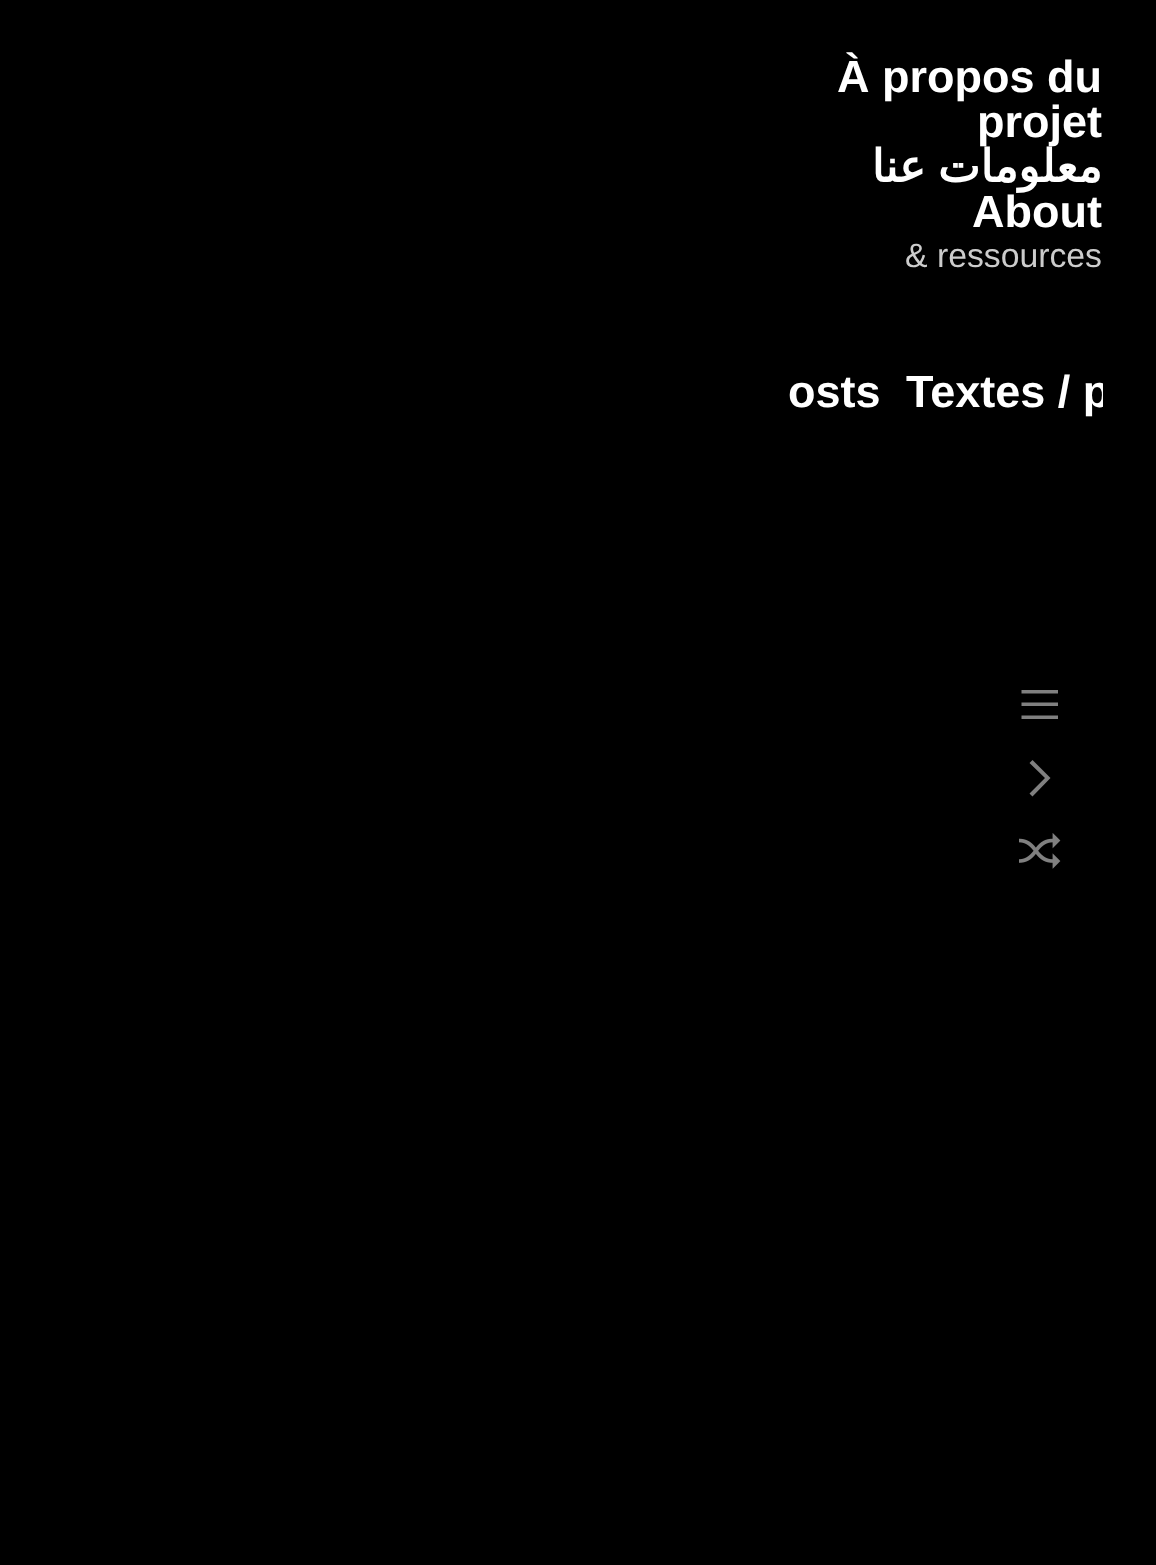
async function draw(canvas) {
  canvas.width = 1156
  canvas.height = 1565
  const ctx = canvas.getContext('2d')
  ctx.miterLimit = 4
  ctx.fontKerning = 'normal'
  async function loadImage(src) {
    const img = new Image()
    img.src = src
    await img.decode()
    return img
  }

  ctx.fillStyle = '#000'
  ctx.fillRect(0, 0, 1156, 1565)
  ctx.font = 'bold 45px Liberation Sans'
  ctx.fillStyle = '#fff'
  ctx.fillText('À propos du', 837, 92)
  ctx.fillText('projet', 977, 137)
  ctx.wordSpacing = '-2px'
  ctx.direction = 'rtl'
  ctx.font = 'bold 45px DejaVu Sans'
  ctx.fillText('معلومات عنا', 1102, 182)
  ctx.wordSpacing = '0px'
  ctx.direction = 'ltr'
  ctx.font = 'bold 45px Liberation Sans'
  ctx.fillText('About', 972, 227)
  ctx.font = '33.75px Liberation Sans'
  ctx.fillStyle = '#ccc'
  ctx.fillText('& ressources', 905, 267)
  ctx.font = 'bold 45px Liberation Sans'
  ctx.fillStyle = '#fff'
  ctx.fillText('osts', 788, 407)
  ctx.save()
  ctx.beginPath()
  ctx.rect(783, 359, 320, 67)
  ctx.clip()
  ctx.fillText('Textes / p', 906, 407)
  ctx.restore()
  ctx.fillStyle = '#808080'
  ctx.beginPath()
  ctx.moveTo(1058, 693.5)
  ctx.lineTo(1058, 690)
  ctx.lineTo(1021.5, 690)
  ctx.lineTo(1021.5, 693.5)
  ctx.closePath()
  ctx.moveTo(1058, 706)
  ctx.lineTo(1058, 702.5)
  ctx.lineTo(1021.5, 702.5)
  ctx.lineTo(1021.5, 706)
  ctx.closePath()
  ctx.moveTo(1058, 719)
  ctx.lineTo(1058, 715.5)
  ctx.lineTo(1021.5, 715.5)
  ctx.lineTo(1021.5, 719)
  ctx.closePath()
  ctx.fill()
  ctx.beginPath()
  ctx.moveTo(1050.5, 778)
  ctx.lineTo(1032.5, 760)
  ctx.lineTo(1029.5, 763)
  ctx.lineTo(1045, 778)
  ctx.lineTo(1029.5, 793.5)
  ctx.lineTo(1032.5, 796.5)
  ctx.closePath()
  ctx.fill()
  ctx.drawImage(await loadImage('image0.png'), 1019, 833, 42, 36)
}

draw(document.querySelector('canvas'))
